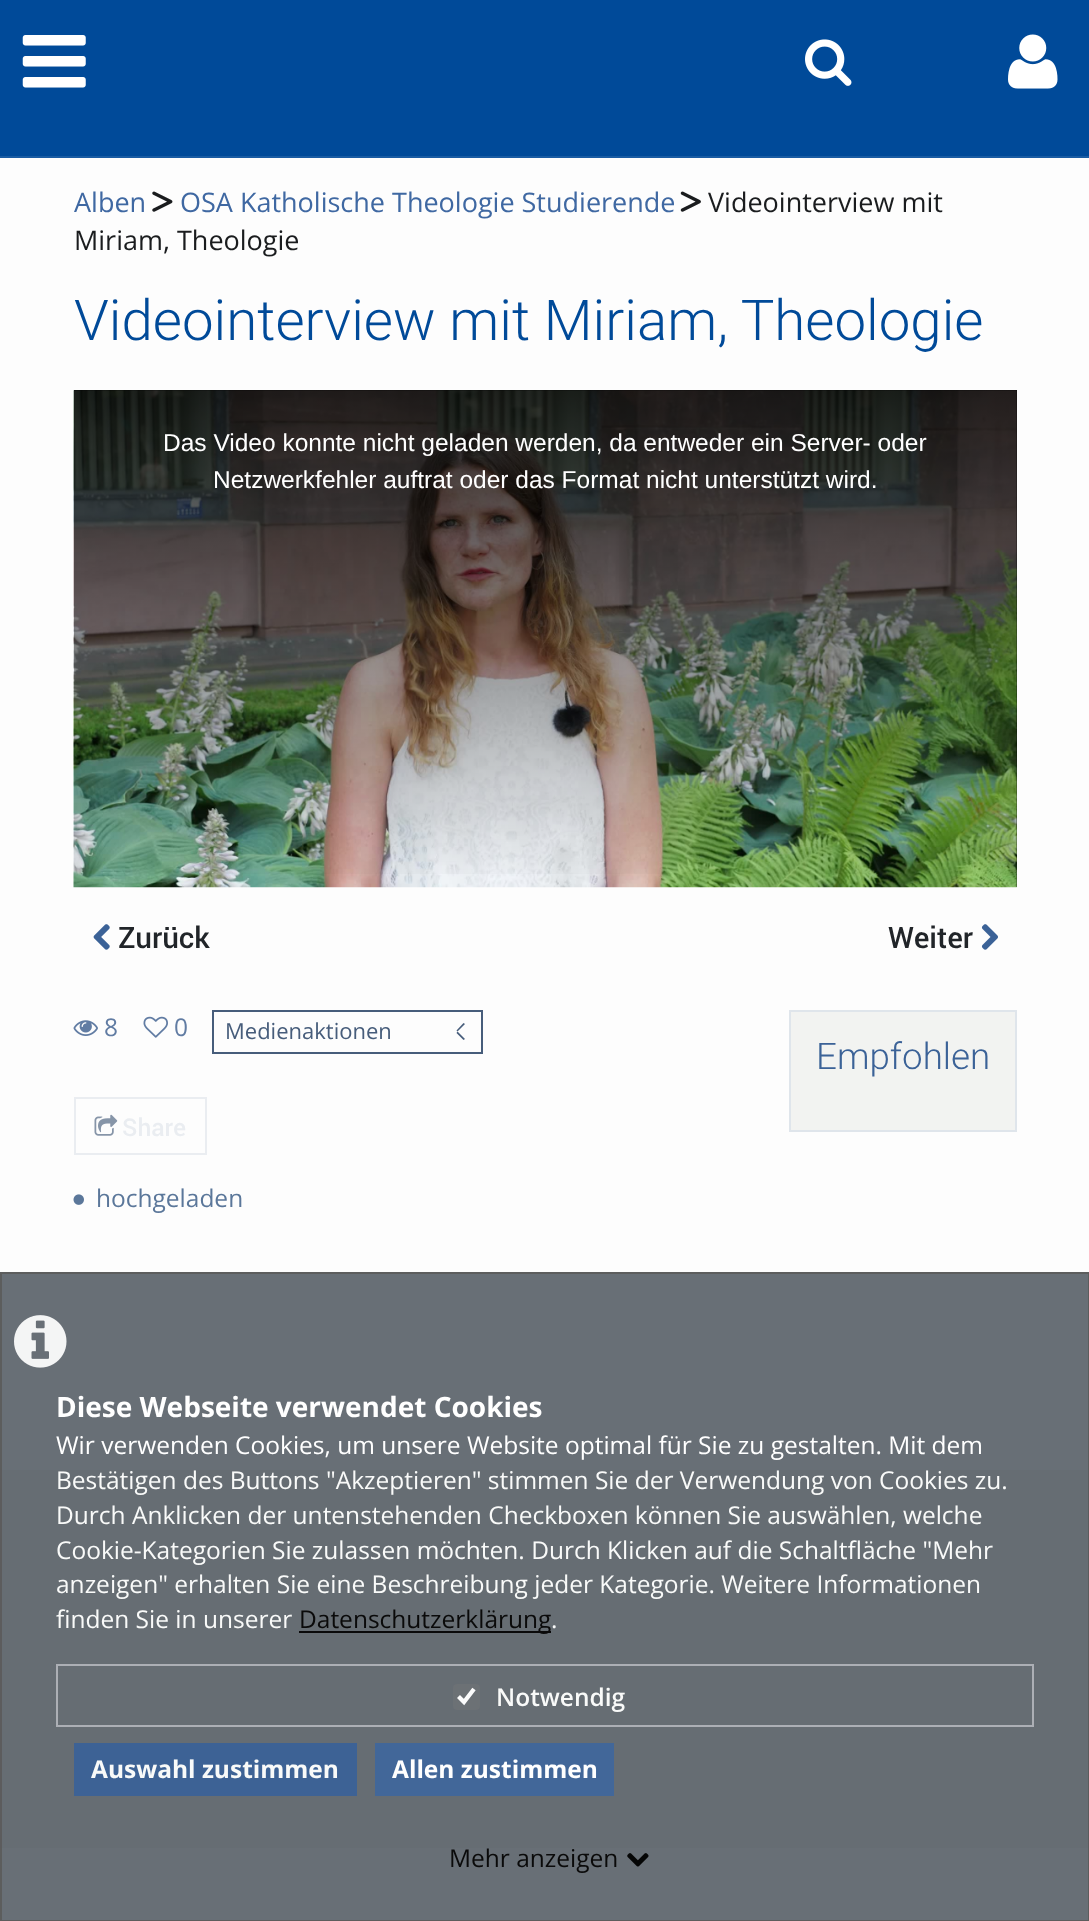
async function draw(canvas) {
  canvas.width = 1089
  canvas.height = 1921
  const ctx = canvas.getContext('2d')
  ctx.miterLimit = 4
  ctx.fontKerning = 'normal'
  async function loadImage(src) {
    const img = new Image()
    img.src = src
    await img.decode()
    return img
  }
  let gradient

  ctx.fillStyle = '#686f76'
  ctx.fillRect(0, 0, 1089, 1921)
  ctx.fillStyle = '#004a99'
  ctx.fillRect(0, 0, 1089, 156)
  ctx.fillStyle = '#1a5ca3'
  ctx.fillRect(0, 156, 1089, 2)
  ctx.drawImage(await loadImage('image0.png'), 22, 35, 64, 53)
  ctx.drawImage(await loadImage('image1.png'), 805, 39, 47, 47)
  ctx.drawImage(await loadImage('image2.png'), 1008, 34, 50, 55)
  ctx.fillStyle = '#fdfdfd'
  ctx.fillRect(0, 158, 1089, 1114)
  ctx.font = '27px Open Sans'
  ctx.fillStyle = '#3f68a2'
  ctx.fillText('Alben', 74, 212)
  ctx.drawImage(await loadImage('image3.png'), 152, 191, 21, 21)
  ctx.fillText('OSA Katholische Theologie Studierende', 180, 212)
  ctx.drawImage(await loadImage('image4.png'), 680, 191, 21, 21)
  ctx.fillStyle = '#1a1c1e'
  ctx.fillText('Videointerview mit', 708, 212)
  ctx.fillText('Miriam, Theologie', 74, 250)
  ctx.font = '300 56.4px Roboto'
  ctx.fillStyle = '#004a99'
  ctx.fillText('Videointerview mit Miriam, Theologie', 74, 340)
  ctx.fillStyle = '#000'
  ctx.fillRect(74, 390, 943, 497)
  ctx.drawImage(await loadImage('image5.png'), 73, 390, 944, 498)
  gradient = ctx.createLinearGradient(545, 390, 545, 887)
  gradient.addColorStop(0, '#000000cc')
  gradient.addColorStop(1, '#00000000')
  ctx.fillStyle = gradient
  ctx.fillRect(74, 390, 943, 484)
  ctx.font = '24.5px Liberation Sans'
  ctx.fillStyle = '#fff'
  ctx.fillText('Das Video konnte nicht geladen werden, da entweder ein Server- oder', 163, 451)
  ctx.fillText('Netzwerkfehler auftrat oder das Format nicht unterstützt wird.', 213, 488)
  ctx.drawImage(await loadImage('image6.png'), 93, 924, 17, 26)
  ctx.font = '500 29.5px Roboto'
  ctx.fillStyle = '#212529'
  ctx.fillText('Zurück', 118, 948)
  ctx.fillText('Weiter', 888, 948)
  ctx.drawImage(await loadImage('image7.png'), 981, 924, 17, 26)
  ctx.drawImage(await loadImage('image8.png'), 73, 1020, 25, 16)
  ctx.font = '24.5px Open Sans'
  ctx.fillStyle = '#617ca3'
  ctx.fillText('8', 104, 1036)
  ctx.drawImage(await loadImage('image9.png'), 143, 1016, 25, 22)
  ctx.fillText('0', 174, 1036)
  ctx.strokeStyle = '#475d7b'
  ctx.lineWidth = 2
  ctx.strokeRect(213, 1011, 269, 42)
  ctx.font = '22px Open Sans'
  ctx.fillStyle = '#475d7b'
  ctx.fillText('Medienaktionen', 225, 1039)
  ctx.beginPath()
  ctx.moveTo(457.5, 1031.5)
  ctx.lineTo(465, 1039)
  ctx.lineTo(463.5, 1040)
  ctx.lineTo(456.5, 1033)
  ctx.closePath()
  ctx.fill()
  ctx.beginPath()
  ctx.moveTo(463.5, 1023)
  ctx.lineTo(465, 1024)
  ctx.lineTo(457.5, 1031.5)
  ctx.lineTo(456.5, 1030.5)
  ctx.closePath()
  ctx.fill()
  ctx.strokeStyle = '#eaedf1'
  ctx.strokeRect(75, 1098, 131, 56)
  ctx.drawImage(await loadImage('image10.png'), 94, 1114, 24, 22)
  ctx.font = '500 24.5px Roboto'
  ctx.fillStyle = '#eaedf1'
  ctx.fillText('Share', 122, 1136)
  ctx.drawImage(await loadImage('image11.png'), 73, 1194, 11, 11)
  ctx.font = '24.5px Open Sans'
  ctx.fillStyle = '#5b779a'
  ctx.fillText('hochgeladen', 96, 1207)
  ctx.fillStyle = '#f2f3f1'
  ctx.beginPath()
  ctx.rect(790, 1011, 226, 120)
  ctx.fill()
  ctx.strokeStyle = '#dfe5eb'
  ctx.stroke()
  ctx.font = '300 36.75px Roboto'
  ctx.fillStyle = '#3b6297'
  ctx.fillText('Empfohlen', 816, 1069)
  ctx.fillStyle = '#666d73'
  ctx.fillRect(0, 1470, 1089, 378)
  ctx.strokeStyle = '#5c5c5cf2'
  ctx.strokeRect(1, 1273, 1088, 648)
  ctx.drawImage(await loadImage('image12.png'), 14, 1315, 53, 53)
  ctx.font = 'bold 28px Open Sans'
  ctx.fillStyle = '#fff'
  ctx.fillText('Diese Webseite verwendet Cookies', 56, 1417)
  ctx.font = '24.5px Open Sans'
  ctx.fillText('Wir verwenden Cookies, um unsere Website optimal für Sie zu gestalten. Mit dem', 56, 1454)
  ctx.fillStyle = '#f9faf9'
  ctx.fillText('Bestätigen des Buttons "Akzeptieren" stimmen Sie der Verwendung von Cookies zu.', 56, 1489)
  ctx.fillText('Durch Anklicken der untenstehenden Checkboxen können Sie auswählen, welche', 56, 1524)
  ctx.fillText('Cookie-Kategorien Sie zulassen möchten. Durch Klicken auf die Schaltfläche "Mehr', 56, 1559)
  ctx.fillText('anzeigen" erhalten Sie eine Beschreibung jeder Kategorie. Weitere Informationen', 56, 1593)
  ctx.fillText('finden Sie in unserer', 56, 1628)
  ctx.fillStyle = '#0a0a0a'
  ctx.fillRect(299, 1631, 252, 2)
  ctx.fillText('Datenschutzerklärung', 299, 1628)
  ctx.fillStyle = '#f9faf9'
  ctx.fillText('.', 551, 1628)
  ctx.strokeStyle = '#b0b3b8f2'
  ctx.strokeRect(57, 1665, 976, 61)
  ctx.fillStyle = '#6c7175'
  ctx.beginPath()
  ctx.roundRect(453, 1684, 27, 26, 4)
  ctx.fill()
  ctx.beginPath()
  ctx.moveTo(458.5, 1696.5)
  ctx.lineTo(464, 1702)
  ctx.lineTo(474, 1689)
  ctx.strokeStyle = '#fcfcfc'
  ctx.lineWidth = 4.2
  ctx.stroke()
  ctx.font = '600 24.5px Open Sans'
  ctx.fillStyle = '#f9faf9'
  ctx.fillText('Notwendig', 496, 1706)
  ctx.fillStyle = '#3b6297f2'
  ctx.fillRect(74, 1743, 283, 53)
  ctx.font = 'bold 24.5px Open Sans'
  ctx.fillStyle = '#f9faf9'
  ctx.fillText('Auswahl zustimmen', 91, 1778)
  ctx.fillStyle = '#426799'
  ctx.fillRect(375, 1743, 239, 53)
  ctx.fillStyle = '#fff'
  ctx.fillText('Allen zustimmen', 392, 1778)
  ctx.font = '24.5px Open Sans'
  ctx.fillStyle = '#0a0a0a'
  ctx.fillText('Mehr anzeigen', 449, 1867)
  ctx.drawImage(await loadImage('image13.png'), 627, 1853, 22, 14)
}

draw(document.querySelector('canvas'))
